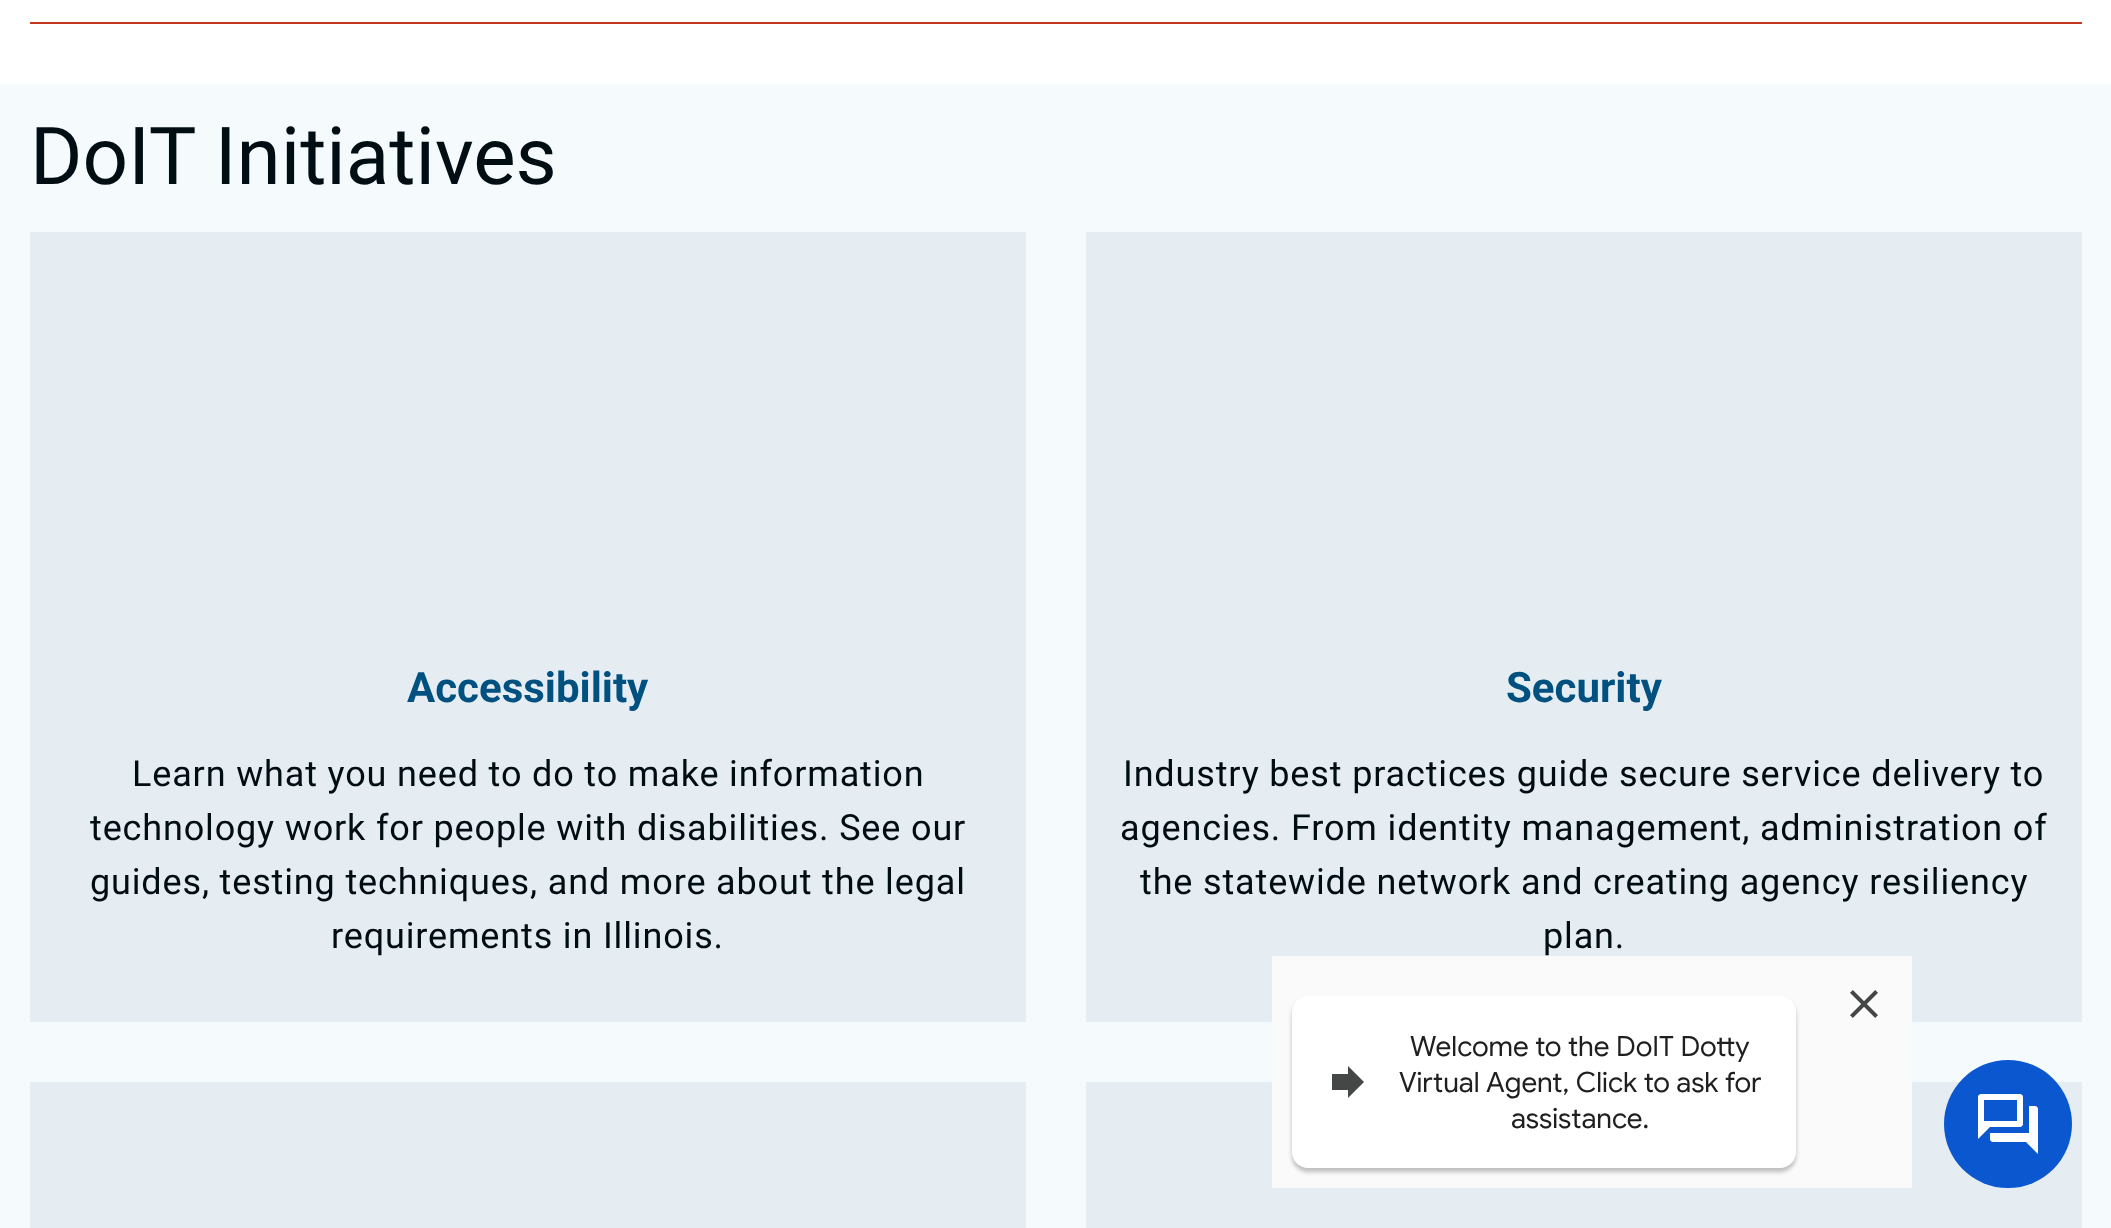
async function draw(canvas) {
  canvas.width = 2111
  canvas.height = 1228
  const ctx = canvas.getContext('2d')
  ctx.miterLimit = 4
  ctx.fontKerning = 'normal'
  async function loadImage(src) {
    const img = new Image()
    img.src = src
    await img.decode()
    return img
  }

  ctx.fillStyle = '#fff'
  ctx.fillRect(0, 0, 2111, 1228)
  ctx.fillStyle = '#c3371e'
  ctx.fillRect(30, 22, 2052, 2)
  ctx.fillStyle = '#f5fafd'
  ctx.fillRect(0, 84, 2111, 1144)
  ctx.font = '80px Roboto'
  ctx.fillStyle = '#000e14'
  ctx.fillText('DoIT Initiatives', 30, 184)
  ctx.fillStyle = '#e5edf2'
  ctx.fillRect(30, 232, 996, 790)
  ctx.font = 'bold 42px Roboto'
  ctx.fillStyle = '#005180'
  ctx.fillText('Accessibility', 407, 702)
  ctx.letterSpacing = '0.85px'
  ctx.font = '36px Roboto'
  ctx.fillStyle = '#000e14'
  ctx.fillText('Learn what you need to do to make information', 132, 786)
  ctx.fillText('technology work for people with disabilities. See our', 90, 840)
  ctx.fillText('guides, testing techniques, and more about the legal', 90, 894)
  ctx.fillText('requirements in Illinois.', 331, 948)
  ctx.fillStyle = '#e5edf2'
  ctx.fillRect(1086, 232, 996, 790)
  ctx.letterSpacing = '0px'
  ctx.font = 'bold 42px Roboto'
  ctx.fillStyle = '#005180'
  ctx.fillText('Security', 1506, 702)
  ctx.letterSpacing = '0.85px'
  ctx.font = '36px Roboto'
  ctx.fillStyle = '#000e14'
  ctx.fillText('Industry best practices guide secure service delivery to', 1123, 786)
  ctx.fillText('agencies. From identity management, administration of', 1120, 840)
  ctx.fillText('the statewide network and creating agency resiliency', 1140, 894)
  ctx.fillText('plan.', 1543, 948)
  ctx.fillStyle = '#e5edf2'
  ctx.fillRect(30, 1082, 996, 146)
  ctx.fillRect(1086, 1082, 996, 146)
  ctx.fillStyle = '#fafafa'
  ctx.fillRect(1272, 956, 640, 232)
  ctx.drawImage(await loadImage('image0.png'), 1850, 990, 28, 28)
  ctx.fillStyle = '#0000003d'
  ctx.filter = 'blur(2px)'
  ctx.beginPath()
  ctx.roundRect(1292, 1000, 504, 172, 16)
  ctx.fill()
  ctx.filter = 'none'
  ctx.fillStyle = '#fff'
  ctx.beginPath()
  ctx.roundRect(1292, 996, 504, 172, 16)
  ctx.fill()
  ctx.fillStyle = '#444746'
  ctx.beginPath()
  ctx.moveTo(1348, 1074)
  ctx.lineTo(1348, 1066)
  ctx.lineTo(1364, 1082)
  ctx.lineTo(1348, 1098)
  ctx.lineTo(1348, 1090)
  ctx.lineTo(1332, 1090)
  ctx.lineTo(1332, 1074)
  ctx.closePath()
  ctx.moveTo(1372, 1106)
  ctx.lineTo(1372, 1106)
  ctx.closePath()
  ctx.moveTo(1420, 1106)
  ctx.lineTo(1420, 1106)
  ctx.closePath()
  ctx.moveTo(1468, 1106)
  ctx.lineTo(1468, 1106)
  ctx.closePath()
  ctx.moveTo(1516, 1106)
  ctx.lineTo(1516, 1106)
  ctx.closePath()
  ctx.moveTo(1564, 1106)
  ctx.lineTo(1564, 1106)
  ctx.closePath()
  ctx.moveTo(1612, 1106)
  ctx.lineTo(1612, 1106)
  ctx.closePath()
  ctx.fill()
  ctx.letterSpacing = '0px'
  ctx.font = '28px Google Sans'
  ctx.fillStyle = '#1f1f1f'
  ctx.fillText('Welcome to the DoIT Dotty', 1410, 1056)
  ctx.fillText('Virtual Agent, Click to ask for', 1399, 1092)
  ctx.fillText('assistance.', 1511, 1128)
  ctx.fillStyle = '#0b57d0'
  ctx.beginPath()
  ctx.arc(2008, 1124, 64, 0, 2 * Math.PI)
  ctx.fill()
  ctx.drawImage(await loadImage('image1.png'), 1978, 1094, 60, 60)
}

draw(document.querySelector('canvas'))
